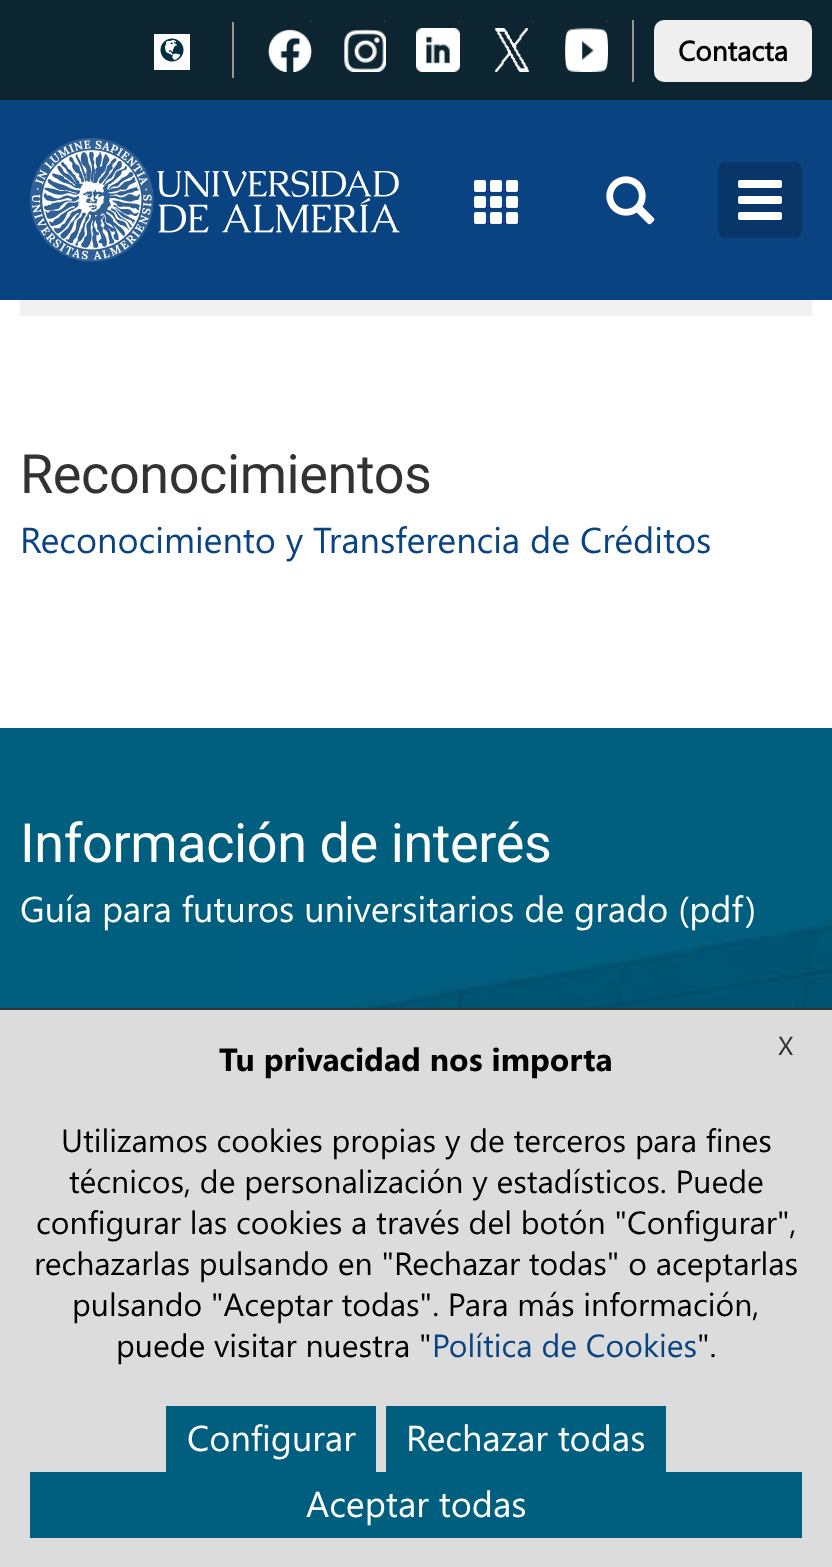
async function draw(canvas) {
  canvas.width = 832
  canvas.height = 1567
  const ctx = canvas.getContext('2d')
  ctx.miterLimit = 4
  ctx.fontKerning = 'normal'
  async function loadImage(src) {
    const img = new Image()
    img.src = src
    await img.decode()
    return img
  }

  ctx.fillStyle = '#fff'
  ctx.fillRect(0, 0, 832, 1567)
  ctx.fillStyle = '#0d2531'
  ctx.fillRect(0, 0, 832, 100)
  ctx.fillStyle = '#fff'
  ctx.fillRect(154, 34, 36, 36)
  ctx.drawImage(await loadImage('image0.png'), 160, 38, 24, 24)
  ctx.fillStyle = '#969696'
  ctx.fillRect(232, 22, 2, 56)
  ctx.fillStyle = '#323232'
  ctx.fillRect(310, 20, 2, 2)
  ctx.drawImage(await loadImage('image1.png'), 268, 29, 44, 43)
  ctx.fillRect(384, 20, 2, 2)
  ctx.drawImage(await loadImage('image2.png'), 344, 29, 42, 43)
  ctx.fillRect(458, 20, 2, 2)
  ctx.drawImage(await loadImage('image3.png'), 416, 28, 44, 44)
  ctx.fillRect(532, 20, 2, 2)
  ctx.drawImage(await loadImage('image4.png'), 495, 28, 34, 44)
  ctx.fillRect(606, 20, 2, 2)
  ctx.drawImage(await loadImage('image5.png'), 565, 28, 43, 44)
  ctx.fillStyle = '#969696'
  ctx.fillRect(632, 20, 2, 62)
  ctx.fillStyle = '#efefef'
  ctx.beginPath()
  ctx.roundRect(654, 20, 158, 62, 10)
  ctx.fill()
  ctx.font = 'bold 28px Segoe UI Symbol'
  ctx.fillStyle = '#000'
  ctx.fillText('Contacta', 678, 61)
  ctx.fillStyle = '#0a4382'
  ctx.fillRect(0, 100, 832, 200)
  ctx.drawImage(await loadImage('image6.png'), 30, 138, 370, 124)
  ctx.drawImage(await loadImage('image7.png'), 474, 180, 44, 44)
  ctx.drawImage(await loadImage('image8.png'), 606, 176, 49, 49)
  ctx.fillStyle = '#083668'
  ctx.beginPath()
  ctx.roundRect(718, 162, 84, 76, 8)
  ctx.fill()
  ctx.fillStyle = '#fff'
  ctx.beginPath()
  ctx.roundRect(738, 180, 44, 8, 2)
  ctx.fill()
  ctx.beginPath()
  ctx.roundRect(738, 196, 44, 8, 2)
  ctx.fill()
  ctx.beginPath()
  ctx.roundRect(738, 212, 44, 8, 2)
  ctx.fill()
  ctx.fillStyle = '#f0f0f0'
  ctx.fillRect(20, 300, 792, 16)
  ctx.letterSpacing = '-0.4px'
  ctx.font = '54px Roboto'
  ctx.fillStyle = '#323232'
  ctx.fillText('Reconocimientos', 20, 493)
  ctx.letterSpacing = '0px'
  ctx.font = '36px Segoe UI Symbol'
  ctx.fillStyle = '#0a4382'
  ctx.fillText('Reconocimiento y Transferencia de Créditos', 20, 553)
  ctx.fillStyle = '#005e7f'
  ctx.fillRect(0, 728, 832, 280)
  ctx.drawImage(await loadImage('image9.png'), 238, 920, 594, 88)
  ctx.letterSpacing = '-0.4px'
  ctx.font = '54px Roboto'
  ctx.fillStyle = '#fff'
  ctx.fillText('Información de interés', 20, 862)
  ctx.letterSpacing = '0px'
  ctx.font = '36px Segoe UI Symbol'
  ctx.fillText('Guía para futuros universitarios de grado (pdf)', 20, 922)
  ctx.fillStyle = '#dcdcdc'
  ctx.fillRect(0, 1010, 832, 557)
  ctx.fillStyle = '#323232'
  ctx.fillRect(0, 1008, 832, 2)
  ctx.font = '26px Segoe UI Symbol'
  ctx.fillText('X', 778, 1055)
  ctx.font = 'bold 32px Segoe UI'
  ctx.fillStyle = '#000'
  ctx.fillText('Tu privacidad nos importa', 219, 1071)
  ctx.font = '32px Segoe UI Symbol'
  ctx.fillText('Utilizamos cookies propias y de terceros para fines', 61, 1152)
  ctx.fillText('técnicos, de personalización y estadísticos. Puede', 69, 1193)
  ctx.fillText('configurar las cookies a través del botón "Configurar",', 36, 1234)
  ctx.fillText('rechazarlas pulsando en "Rechazar todas" o aceptarlas', 34, 1275)
  ctx.fillText('pulsando "Aceptar todas". Para más información,', 72, 1316)
  ctx.fillText('puede visitar nuestra "', 116, 1357)
  ctx.fillStyle = '#0a4382'
  ctx.fillText('Política de Cookies', 432, 1357)
  ctx.fillStyle = '#000'
  ctx.fillText('".', 697, 1357)
  ctx.fillStyle = '#005e7f'
  ctx.fillRect(166, 1406, 210, 66)
  ctx.font = '36px Segoe UI Symbol'
  ctx.fillStyle = '#fff'
  ctx.fillText('Configurar', 187, 1451)
  ctx.fillStyle = '#005e7f'
  ctx.fillRect(386, 1406, 280, 66)
  ctx.fillStyle = '#fff'
  ctx.fillText('Rechazar todas', 406, 1451)
  ctx.fillStyle = '#005e7f'
  ctx.fillRect(30, 1472, 772, 66)
  ctx.fillStyle = '#fff'
  ctx.fillText('Aceptar todas', 306, 1517)
}

draw(document.querySelector('canvas'))
